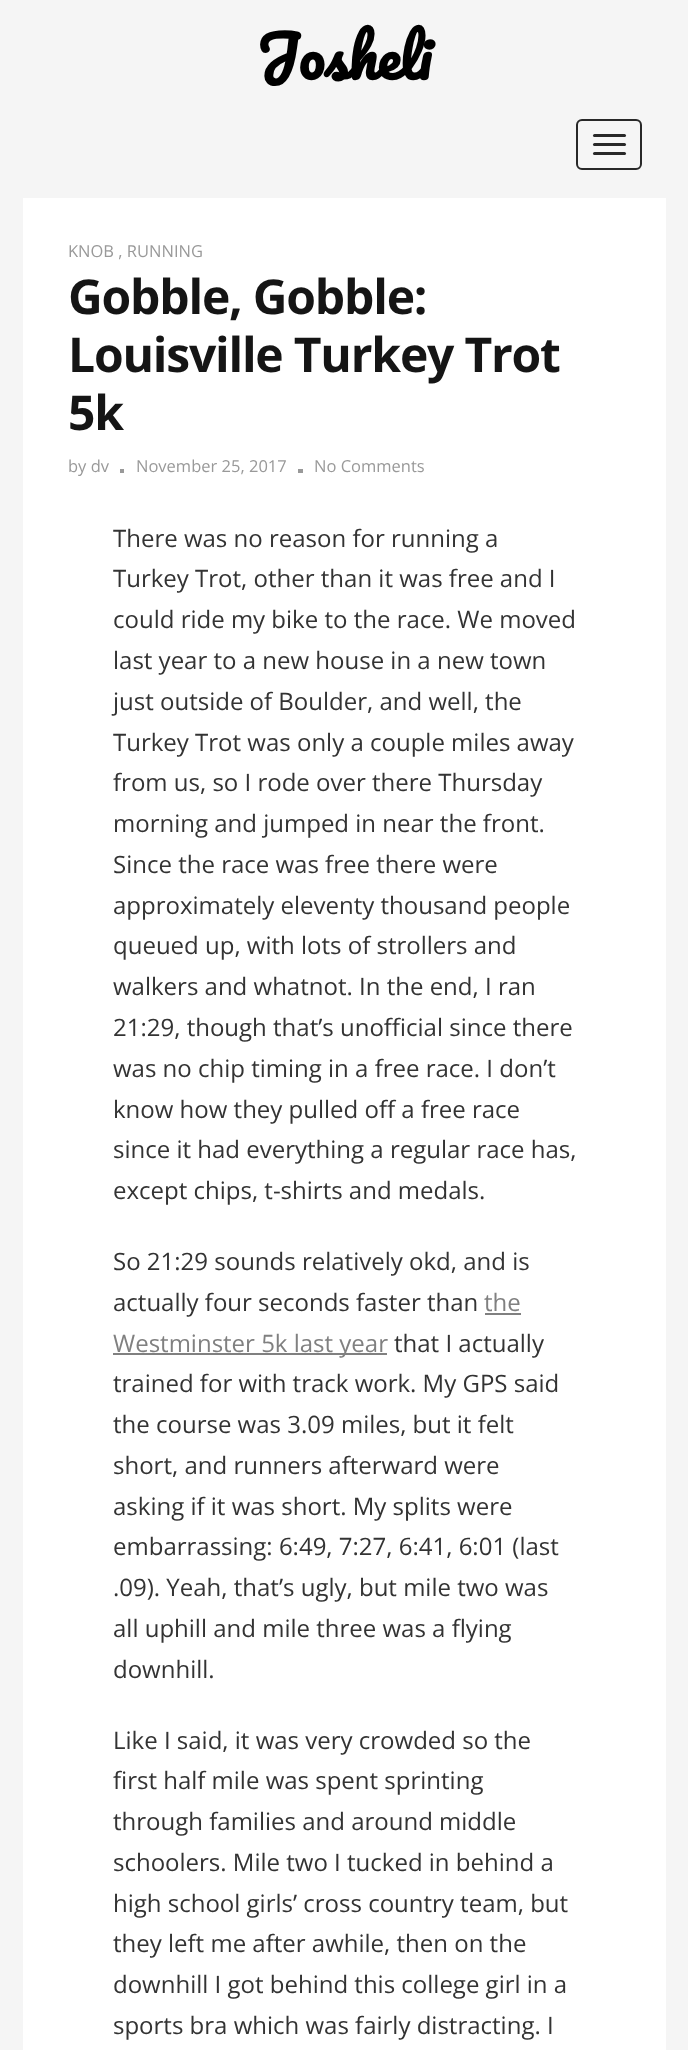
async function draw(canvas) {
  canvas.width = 688
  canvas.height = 2050
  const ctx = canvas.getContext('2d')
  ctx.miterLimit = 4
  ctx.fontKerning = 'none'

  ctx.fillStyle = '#f5f5f5'
  ctx.fillRect(0, 0, 688, 2050)
  ctx.font = 'bold 57px Pacifico'
  ctx.fillStyle = '#000'
  ctx.fillText('Josheli', 256, 80)
  ctx.beginPath()
  ctx.roundRect(577, 120, 64, 49, 5)
  ctx.strokeStyle = '#282828'
  ctx.lineWidth = 2
  ctx.stroke()
  ctx.fillStyle = '#282828'
  ctx.beginPath()
  ctx.roundRect(593, 134, 33, 3, 1.5)
  ctx.fill()
  ctx.beginPath()
  ctx.roundRect(593, 143, 33, 3, 1.5)
  ctx.fill()
  ctx.beginPath()
  ctx.roundRect(593, 152, 33, 3, 1.5)
  ctx.fill()
  ctx.fillStyle = '#fff'
  ctx.fillRect(23, 198, 643, 1852)
  ctx.font = '16.5px Open Sans'
  ctx.fillStyle = '#999'
  ctx.fillText('KNOB , RUNNING', 68, 257)
  ctx.letterSpacing = '-1.2px'
  ctx.font = 'bold 48px Open Sans'
  ctx.fillStyle = '#151515'
  ctx.fillText('Gobble, Gobble:', 68, 314)
  ctx.fillText('Louisville Turkey Trot', 68, 372)
  ctx.fillText('5k', 68, 430)
  ctx.letterSpacing = '0px'
  ctx.font = '16.5px Open Sans'
  ctx.fillStyle = '#999'
  ctx.fillText('by dv', 68, 472)
  ctx.fillRect(120, 469, 4, 4)
  ctx.fillText('November 25, 2017', 136, 472)
  ctx.fillRect(298, 469, 5, 4)
  ctx.fillText('No Comments', 314, 472)
  ctx.font = '24px Open Sans'
  ctx.fillStyle = '#333'
  ctx.fillText('There was no reason for running a', 113, 547)
  ctx.fillText('Turkey Trot, other than it was free and I', 113, 587)
  ctx.fillText('could ride my bike to the race. We moved', 113, 628)
  ctx.fillText('last year to a new house in a new town', 113, 669)
  ctx.fillText('just outside of Boulder, and well, the', 113, 710)
  ctx.fillText('Turkey Trot was only a couple miles away', 113, 751)
  ctx.fillText('from us, so I rode over there Thursday', 113, 791)
  ctx.fillText('morning and jumped in near the front.', 113, 832)
  ctx.fillText('Since the race was free there were', 113, 873)
  ctx.fillText('approximately eleventy thousand people', 113, 914)
  ctx.fillText('queued up, with lots of strollers and', 113, 954)
  ctx.fillText('walkers and whatnot. In the end, I ran', 113, 995)
  ctx.fillText('21:29, though that’s unofficial since there', 113, 1036)
  ctx.fillText('was no chip timing in a free race. I don’t', 113, 1077)
  ctx.fillText('know how they pulled off a free race', 113, 1118)
  ctx.fillText('since it had everything a regular race has,', 113, 1158)
  ctx.fillText('except chips, t-shirts and medals.', 113, 1199)
  ctx.fillText('So 21:29 sounds relatively okd, and is', 113, 1270)
  ctx.fillText('actually four seconds faster than', 113, 1311)
  ctx.fillStyle = '#808080'
  ctx.fillText('the', 484, 1311)
  ctx.fillRect(485, 1313, 36, 2)
  ctx.fillRect(113, 1353, 274, 2)
  ctx.fillText('Westminster 5k last year', 113, 1352)
  ctx.fillStyle = '#333'
  ctx.fillText('that I actually', 394, 1352)
  ctx.fillText('trained for with track work. My GPS said', 113, 1392)
  ctx.fillText('the course was 3.09 miles, but it felt', 113, 1433)
  ctx.fillText('short, and runners afterward were', 113, 1474)
  ctx.fillText('asking if it was short. My splits were', 113, 1515)
  ctx.fillText('embarrassing: 6:49, 7:27, 6:41, 6:01 (last', 113, 1555)
  ctx.fillText('.09). Yeah, that’s ugly, but mile two was', 113, 1596)
  ctx.fillText('all uphill and mile three was a flying', 113, 1637)
  ctx.fillText('downhill.', 113, 1678)
  ctx.fillText('Like I said, it was very crowded so the', 113, 1749)
  ctx.fillText('first half mile was spent sprinting', 113, 1789)
  ctx.fillText('through families and around middle', 113, 1830)
  ctx.fillText('schoolers. Mile two I tucked in behind a', 113, 1871)
  ctx.fillText('high school girls’ cross country team, but', 113, 1912)
  ctx.fillText('they left me after awhile, then on the', 113, 1952)
  ctx.fillText('downhill I got behind this college girl in a', 113, 1993)
  ctx.fillText('sports bra which was fairly distracting. I', 113, 2034)
}

draw(document.querySelector('canvas'))
